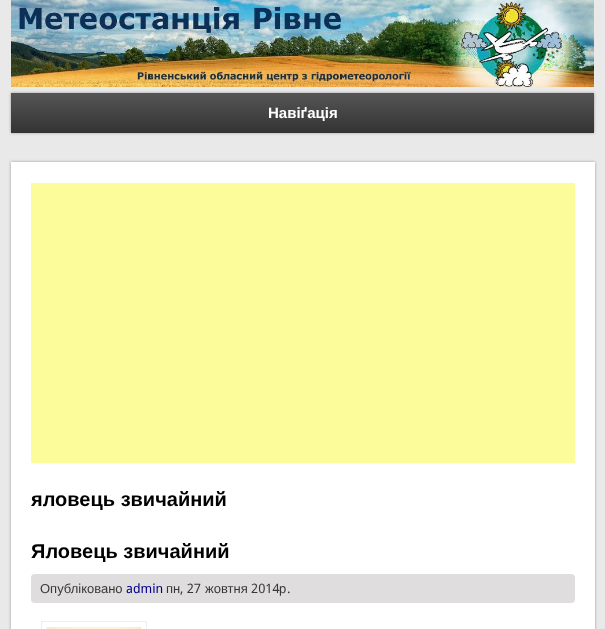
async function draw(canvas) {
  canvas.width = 605
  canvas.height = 629
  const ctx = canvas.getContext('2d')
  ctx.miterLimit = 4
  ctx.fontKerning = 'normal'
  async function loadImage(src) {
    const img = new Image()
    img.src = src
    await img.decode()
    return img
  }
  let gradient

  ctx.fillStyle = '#e9e9e9'
  ctx.fillRect(0, 0, 605, 629)
  ctx.drawImage(await loadImage('image0.png'), 11, 0, 583, 87)
  ctx.fillStyle = '#999'
  ctx.filter = 'blur(1.5px)'
  ctx.beginPath()
  ctx.rect(11, 93, 583, 40)
  ctx.fill()
  ctx.filter = 'none'
  gradient = ctx.createLinearGradient(303, 93, 303, 173)
  gradient.addColorStop(0, '#555')
  gradient.addColorStop(0.5, '#333')
  gradient.addColorStop(0.5, '#555')
  gradient.addColorStop(1, '#333')
  ctx.fillStyle = gradient
  ctx.fillRect(11, 93, 583, 40)
  ctx.font = 'bold 15px Liberation Sans'
  ctx.fillStyle = '#fff'
  ctx.fillText('Навіґація', 268, 118)
  ctx.fillStyle = '#999'
  ctx.filter = 'blur(1.5px)'
  ctx.beginPath()
  ctx.rect(11, 162, 584, 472)
  ctx.fill()
  ctx.filter = 'none'
  ctx.fillStyle = '#fff'
  ctx.fillRect(11, 162, 584, 467)
  ctx.fillStyle = '#fdfc9b'
  ctx.fillRect(31, 183, 544, 280)
  ctx.font = 'bold 20px Liberation Sans'
  ctx.fillStyle = '#000'
  ctx.fillText('яловець звичайний', 31, 506)
  ctx.fillText('Яловець звичайний', 31, 558)
  ctx.fillStyle = '#dfdddd'
  ctx.beginPath()
  ctx.roundRect(31, 574, 544, 29, 4)
  ctx.fill()
  ctx.font = '13px Liberation Sans'
  ctx.fillStyle = '#383838'
  ctx.fillText('Опубліковано', 40, 593)
  ctx.font = '13px Droid Sans'
  ctx.fillStyle = '#00008b'
  ctx.fillText('admin', 126, 593)
  ctx.font = '13px Liberation Sans'
  ctx.fillStyle = '#383838'
  ctx.fillText('пн', 166, 593)
  ctx.font = '13px Droid Sans'
  ctx.fillText(', 27', 180, 593)
  ctx.font = '13px Liberation Sans'
  ctx.fillText('жовтня', 205, 593)
  ctx.font = '13px Droid Sans'
  ctx.fillText('2014', 251, 593)
  ctx.font = '13px Liberation Sans'
  ctx.fillText('р', 279, 593)
  ctx.font = '13px Droid Sans'
  ctx.fillText('.', 287, 593)
  ctx.strokeStyle = '#eee'
  ctx.strokeRect(41.5, 621.5, 105, 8)
  ctx.drawImage(await loadImage('image1.png'), 47, 627, 94, 2)
}

draw(document.querySelector('canvas'))
